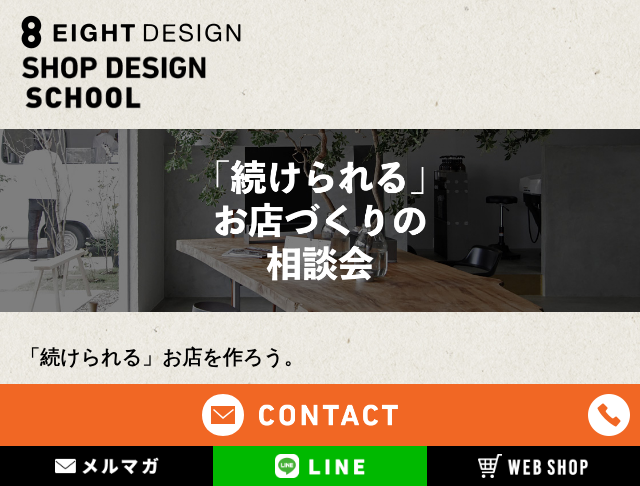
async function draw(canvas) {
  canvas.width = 640
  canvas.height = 486
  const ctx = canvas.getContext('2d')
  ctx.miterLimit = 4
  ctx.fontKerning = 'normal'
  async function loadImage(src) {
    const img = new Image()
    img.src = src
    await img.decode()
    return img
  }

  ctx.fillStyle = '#fff'
  ctx.fillRect(0, 0, 640, 486)
  ctx.drawImage(await loadImage('image0.png'), 0, 0, 640, 384)
  ctx.drawImage(await loadImage('image1.png'), 21, 15, 220, 34)
  ctx.drawImage(await loadImage('image2.png'), 22, 56, 184, 23)
  ctx.drawImage(await loadImage('image3.png'), 25, 86, 116, 23)
  ctx.drawImage(await loadImage('image4.png'), 0, 129, 640, 183)
  ctx.drawImage(await loadImage('image5.png'), 215, 159, 211, 122)
  ctx.font = 'bold 20px WenQuanYi Zen Hei'
  ctx.fillStyle = '#000'
  ctx.fillText('「続けられる」お店を作ろう。', 20, 364)
  ctx.fillStyle = '#f16724'
  ctx.fillRect(0, 384, 640, 62)
  ctx.fillStyle = '#fff'
  ctx.beginPath()
  ctx.moveTo(223, 394)
  ctx.bezierCurveTo(195, 394, 195, 436, 223, 436)
  ctx.bezierCurveTo(251, 436, 251, 394, 223, 394)
  ctx.closePath()
  ctx.moveTo(223, 419)
  ctx.lineTo(234, 410)
  ctx.lineTo(233, 409)
  ctx.lineTo(223, 417)
  ctx.lineTo(214, 409)
  ctx.lineTo(213, 410)
  ctx.closePath()
  ctx.moveTo(235, 424)
  ctx.lineTo(235, 406)
  ctx.lineTo(211, 406)
  ctx.lineTo(211, 424)
  ctx.closePath()
  ctx.fill('evenodd')
  ctx.drawImage(await loadImage('image6.png'), 259, 404, 139, 22)
  ctx.drawImage(await loadImage('image7.png'), 588, 394, 42, 42)
  ctx.fillStyle = '#000'
  ctx.fillRect(0, 446, 213, 40)
  ctx.drawImage(await loadImage('image8.png'), 55, 457, 104, 18)
  ctx.fillStyle = '#00b900'
  ctx.fillRect(213, 446, 214, 40)
  ctx.drawImage(await loadImage('image9.png'), 275, 454, 90, 24)
  ctx.fillStyle = '#000'
  ctx.fillRect(427, 446, 213, 40)
  ctx.drawImage(await loadImage('image10.png'), 478, 454, 110, 24)
}

draw(document.querySelector('canvas'))
